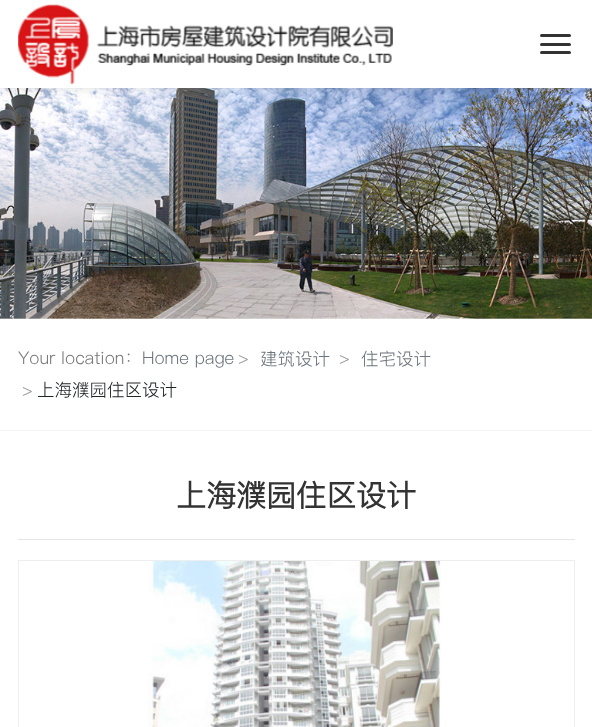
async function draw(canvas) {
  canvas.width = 592
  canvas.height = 727
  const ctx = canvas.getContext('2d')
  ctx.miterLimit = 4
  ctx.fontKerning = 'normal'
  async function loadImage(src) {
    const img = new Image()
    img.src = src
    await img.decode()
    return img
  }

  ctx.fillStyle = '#fff'
  ctx.fillRect(0, 0, 592, 727)
  ctx.drawImage(await loadImage('image1.png'), 0, 88, 592, 231)
  ctx.save()
  ctx.beginPath()
  ctx.moveTo(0, 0)
  ctx.lineTo(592, 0)
  ctx.lineTo(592, 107)
  ctx.lineTo(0, 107)
  ctx.closePath()
  ctx.moveTo(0, 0)
  ctx.lineTo(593, 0)
  ctx.lineTo(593, 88)
  ctx.lineTo(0, 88)
  ctx.closePath()
  ctx.clip('evenodd')
  ctx.fillStyle = '#0000001a'
  ctx.filter = 'blur(6px)'
  ctx.beginPath()
  ctx.rect(0, 0, 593, 88)
  ctx.fill()
  ctx.filter = 'none'
  ctx.restore()
  ctx.drawImage(await loadImage('image0.png'), 18, 4, 375, 80)
  ctx.fillStyle = '#333'
  ctx.beginPath()
  ctx.roundRect(540, 34, 31, 3, 1.5)
  ctx.fill()
  ctx.beginPath()
  ctx.roundRect(540, 43, 31, 3, 1.5)
  ctx.fill()
  ctx.beginPath()
  ctx.roundRect(540, 51, 31, 3, 1.5)
  ctx.fill()
  ctx.fillStyle = '#f4f4f4'
  ctx.fillRect(0, 430, 592, 1)
  ctx.font = '17.5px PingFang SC'
  ctx.fillStyle = '#797979'
  ctx.fillText('Your location：', 18, 364)
  ctx.fillStyle = '#6c757d'
  ctx.fillText('Home page', 142, 364)
  ctx.fillStyle = '#999'
  ctx.fillText('>', 238, 364)
  ctx.fillStyle = '#6c757d'
  ctx.fillText('建筑设计', 260, 365)
  ctx.fillStyle = '#999'
  ctx.fillText('>', 339, 364)
  ctx.fillStyle = '#6c757d'
  ctx.fillText('住宅设计', 361, 365)
  ctx.fillStyle = '#999'
  ctx.fillText('>', 22, 396)
  ctx.fillStyle = '#212529'
  ctx.fillText('上海濮园住区设计', 37, 396)
  ctx.font = 'bold 30px PingFang SC'
  ctx.fillStyle = '#333'
  ctx.fillText('上海濮园住区设计', 176, 506)
  ctx.fillStyle = '#e6e6e6'
  ctx.fillRect(18, 539, 557, 1)
  ctx.strokeStyle = '#eee'
  ctx.strokeRect(18.5, 560.5, 556, 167)
  ctx.drawImage(await loadImage('image2.png'), 148, 561, 293, 166)
}

draw(document.querySelector('canvas'))
